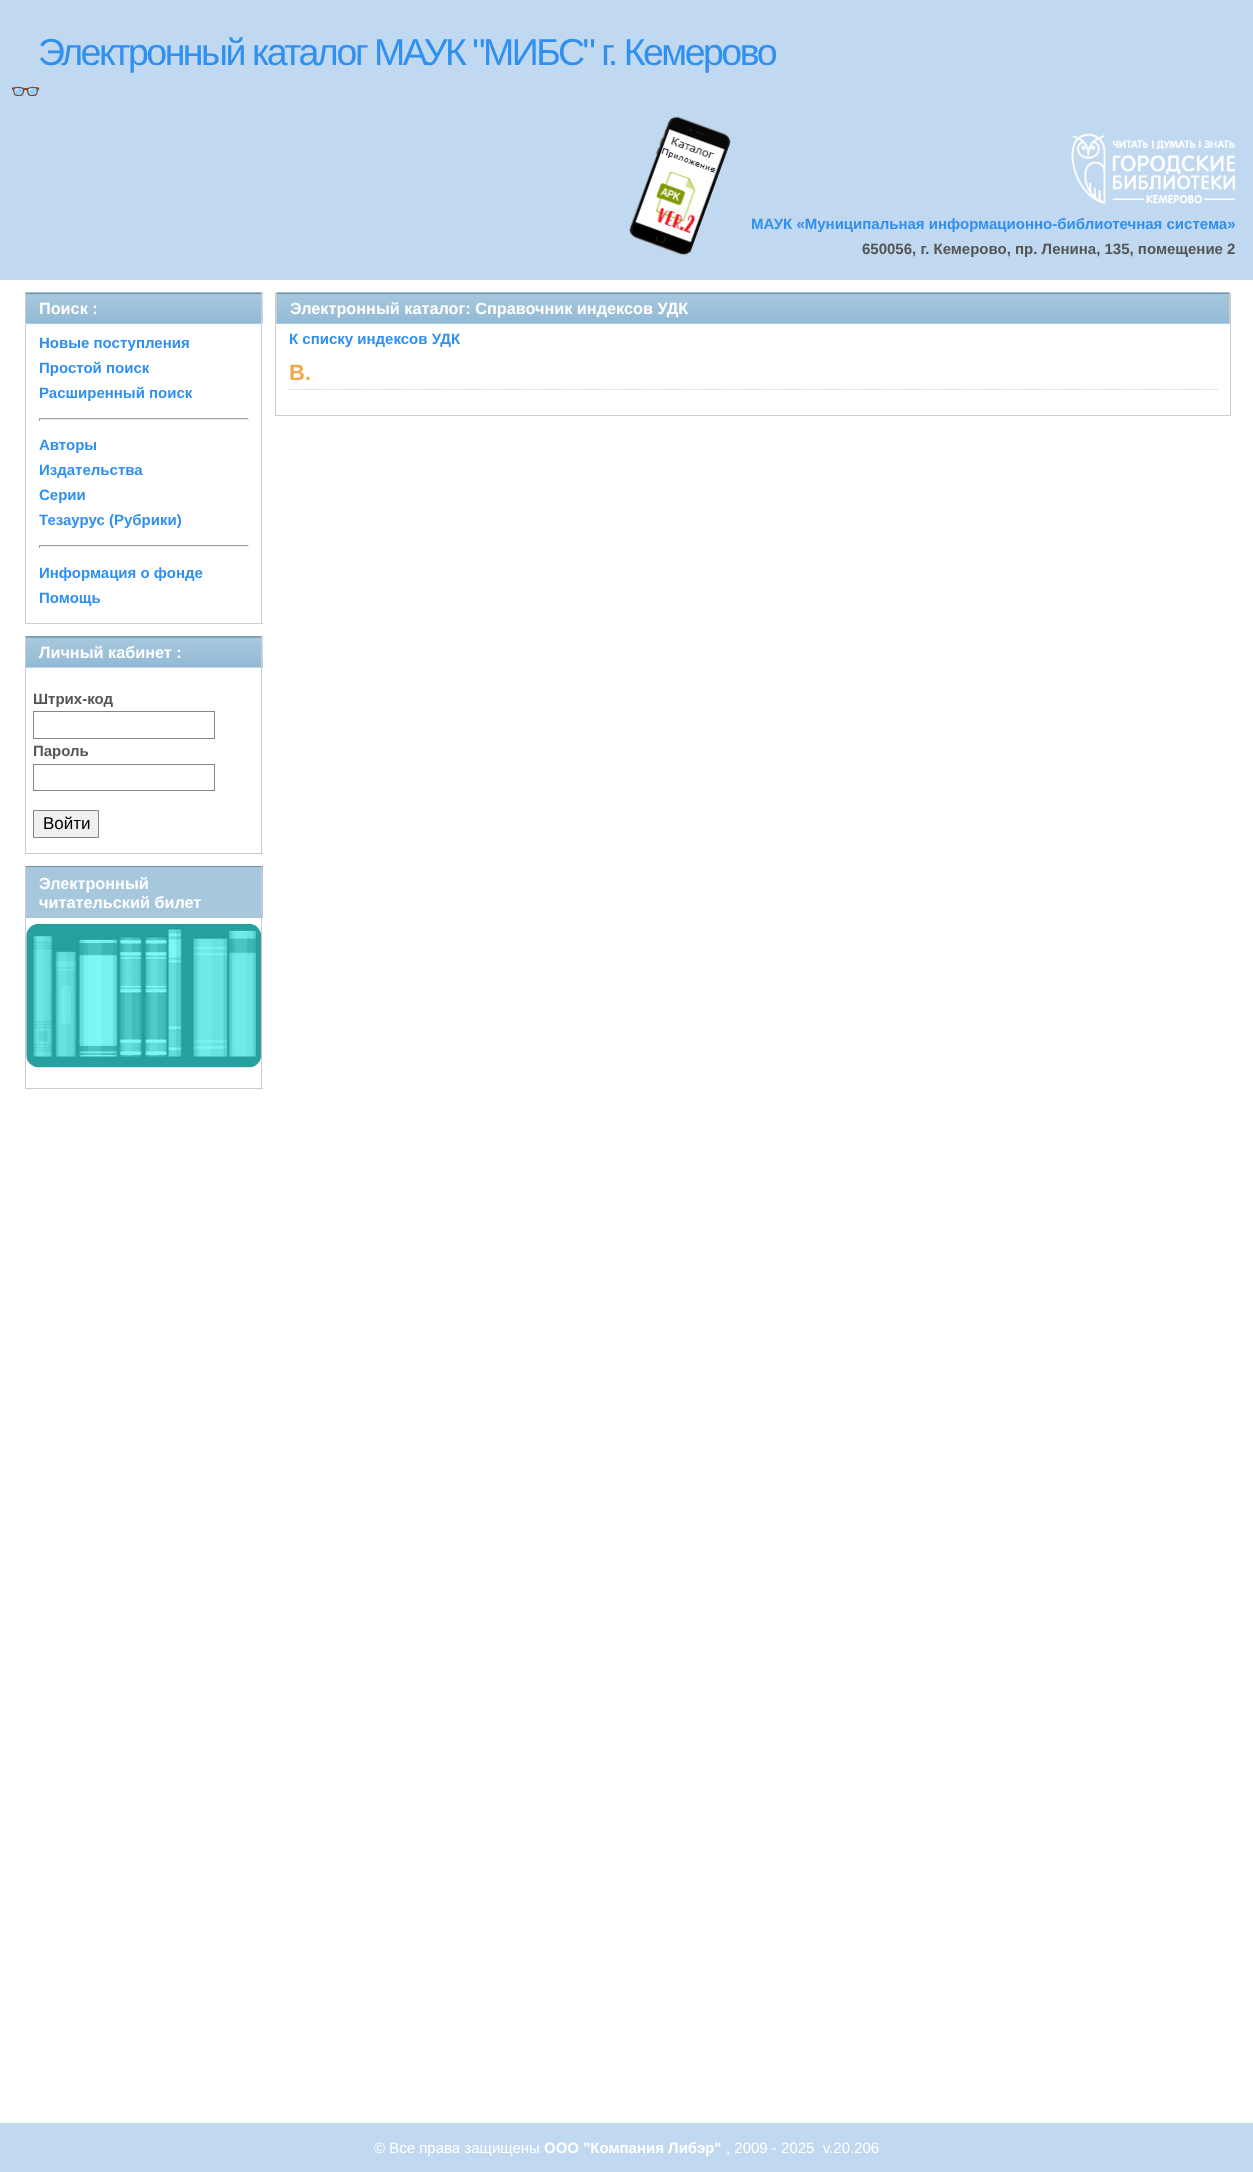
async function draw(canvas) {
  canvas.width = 1253
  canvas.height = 2172
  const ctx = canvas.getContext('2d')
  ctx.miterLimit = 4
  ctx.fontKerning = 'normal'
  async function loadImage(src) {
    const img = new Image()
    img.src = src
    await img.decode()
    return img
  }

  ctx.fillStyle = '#fff'
  ctx.fillRect(0, 0, 1253, 2172)
  ctx.fillStyle = '#c0d8f0'
  ctx.fillRect(0, 0, 1253, 280)
  ctx.letterSpacing = '-2.5px'
  ctx.font = '37.5px Liberation Sans'
  ctx.fillStyle = '#3090f0'
  ctx.fillText('Электронный каталог МАУК "МИБС" г. Кемерово', 38, 65)
  ctx.letterSpacing = '0px'
  ctx.font = 'bold 25px Noto Color Emoji'
  ctx.fillText('👓', 10, 100)
  ctx.drawImage(await loadImage('image0.png'), 629, 116, 102, 139)
  ctx.drawImage(await loadImage('image1.png'), 1071, 133, 164, 71)
  ctx.font = 'bold 15px Liberation Sans'
  ctx.fillText('МАУК «Муниципальная информационно-библиотечная система»', 751, 229)
  ctx.fillStyle = '#555'
  ctx.fillText('650056, г. Кемерово, пр. Ленина, 135, помещение 2', 862, 254)
  ctx.fillStyle = '#eef0f1'
  ctx.fillRect(26, 293, 237, 31)
  ctx.drawImage(await loadImage('image2.png'), 25, 292, 238, 32)
  ctx.fillStyle = '#ccc'
  ctx.fillRect(261, 293, 1, 331)
  ctx.fillRect(25, 293, 1, 31)
  ctx.font = 'bold 16.25px Liberation Sans'
  ctx.fillStyle = '#fff'
  ctx.fillText('Поиск :', 39, 314)
  ctx.fillStyle = '#ccc'
  ctx.fillRect(25, 623, 238, 1)
  ctx.fillRect(25, 324, 1, 300)
  ctx.font = 'bold 15px Liberation Sans'
  ctx.fillStyle = '#3090f0'
  ctx.fillText('Новые поступления', 39, 348)
  ctx.fillText('Простой поиск', 39, 373)
  ctx.fillText('Расширенный поиск', 39, 398)
  ctx.fillStyle = '#9f9f9f'
  ctx.fillRect(39, 418, 210, 1)
  ctx.fillStyle = '#eee'
  ctx.fillRect(248, 418, 1, 3)
  ctx.fillRect(39, 419, 210, 1)
  ctx.fillStyle = '#9f9f9f'
  ctx.fillRect(39, 418, 1, 3)
  ctx.fillStyle = '#3090f0'
  ctx.fillText('Авторы', 39, 450)
  ctx.fillText('Издательства', 39, 475)
  ctx.fillText('Серии', 39, 500)
  ctx.fillText('Тезаурус (Рубрики)', 39, 525)
  ctx.fillStyle = '#9f9f9f'
  ctx.fillRect(39, 545, 210, 1)
  ctx.fillStyle = '#eee'
  ctx.fillRect(248, 545, 1, 3)
  ctx.fillRect(39, 546, 210, 1)
  ctx.fillStyle = '#9f9f9f'
  ctx.fillRect(39, 545, 1, 3)
  ctx.fillStyle = '#3090f0'
  ctx.fillText('Информация о фонде', 39, 578)
  ctx.fillText('Помощь', 39, 603)
  ctx.fillStyle = '#eef0f1'
  ctx.fillRect(26, 636, 237, 32)
  ctx.drawImage(await loadImage('image3.png'), 26, 636, 237, 32)
  ctx.fillStyle = '#ccc'
  ctx.fillRect(261, 636, 1, 218)
  ctx.fillRect(25, 636, 1, 32)
  ctx.font = 'bold 16.25px Liberation Sans'
  ctx.fillStyle = '#fff'
  ctx.fillText('Личный кабинет :', 39, 658)
  ctx.fillStyle = '#ccc'
  ctx.fillRect(25, 853, 238, 1)
  ctx.fillRect(25, 668, 1, 186)
  ctx.font = 'bold 15px Liberation Sans'
  ctx.fillStyle = '#555'
  ctx.fillText('Штрих-код', 33, 704)
  ctx.strokeStyle = '#848388'
  ctx.strokeRect(33.5, 711.5, 181, 27)
  ctx.fillText('Пароль', 33, 756)
  ctx.strokeRect(33.5, 764.5, 181, 26)
  ctx.fillStyle = '#eef0f1'
  ctx.beginPath()
  ctx.rect(33.5, 810.5, 65, 27)
  ctx.fill()
  ctx.stroke()
  ctx.font = '17px Liberation Sans'
  ctx.fillStyle = '#000'
  ctx.fillText('Войти', 43, 829)
  ctx.fillStyle = '#a7c7dc'
  ctx.fillRect(26, 867, 237, 51)
  ctx.fillStyle = '#6990ad'
  ctx.fillRect(25, 866, 238, 1)
  ctx.fillStyle = '#ccc'
  ctx.fillRect(261, 866, 1, 223)
  ctx.fillRect(25, 866, 1, 52)
  ctx.font = 'bold 16.25px Liberation Sans'
  ctx.fillStyle = '#fff'
  ctx.fillText('Электронный', 39, 889)
  ctx.fillText('читательский билет', 39, 908)
  ctx.fillStyle = '#ccc'
  ctx.fillRect(25, 1088, 238, 1)
  ctx.fillRect(25, 918, 1, 171)
  ctx.drawImage(await loadImage('image4.png'), 26, 923, 236, 145)
  ctx.fillRect(1230, 293, 1, 123)
  ctx.fillRect(275, 415, 956, 1)
  ctx.fillRect(275, 293, 1, 123)
  ctx.drawImage(await loadImage('image5.png'), 276, 292, 954, 32)
  ctx.fillRect(1229, 293, 1, 31)
  ctx.fillRect(276, 293, 1, 31)
  ctx.fillStyle = '#fff'
  ctx.fillText('Электронный каталог: Справочник индексов УДК', 290, 314)
  ctx.font = 'bold 15px Liberation Sans'
  ctx.fillStyle = '#3090f0'
  ctx.fillText('К списку индексов УДК', 289, 344)
  ctx.beginPath()
  ctx.moveTo(289, 389.5)
  ctx.lineTo(1217.5, 389.5)
  ctx.strokeStyle = '#ccc'
  ctx.lineWidth = 1.2
  ctx.setLineDash([1.25, 1.25])
  ctx.stroke()
  ctx.font = 'bold 22px Liberation Sans'
  ctx.fillStyle = '#f0a848'
  ctx.fillText('В.', 289, 380)
  ctx.fillStyle = '#c0d8f0'
  ctx.fillRect(0, 2123, 1253, 49)
  ctx.font = '15px Liberation Sans'
  ctx.fillStyle = '#fff'
  ctx.fillText('© Все права защищены', 374, 2153)
  ctx.font = 'bold 15px Liberation Sans'
  ctx.fillText('ООО "Компания Либэр"', 544, 2153)
  ctx.font = '15px Liberation Sans'
  ctx.fillText(', 2009 - 2025  v.20.206', 726, 2153)
}

draw(document.querySelector('canvas'))
